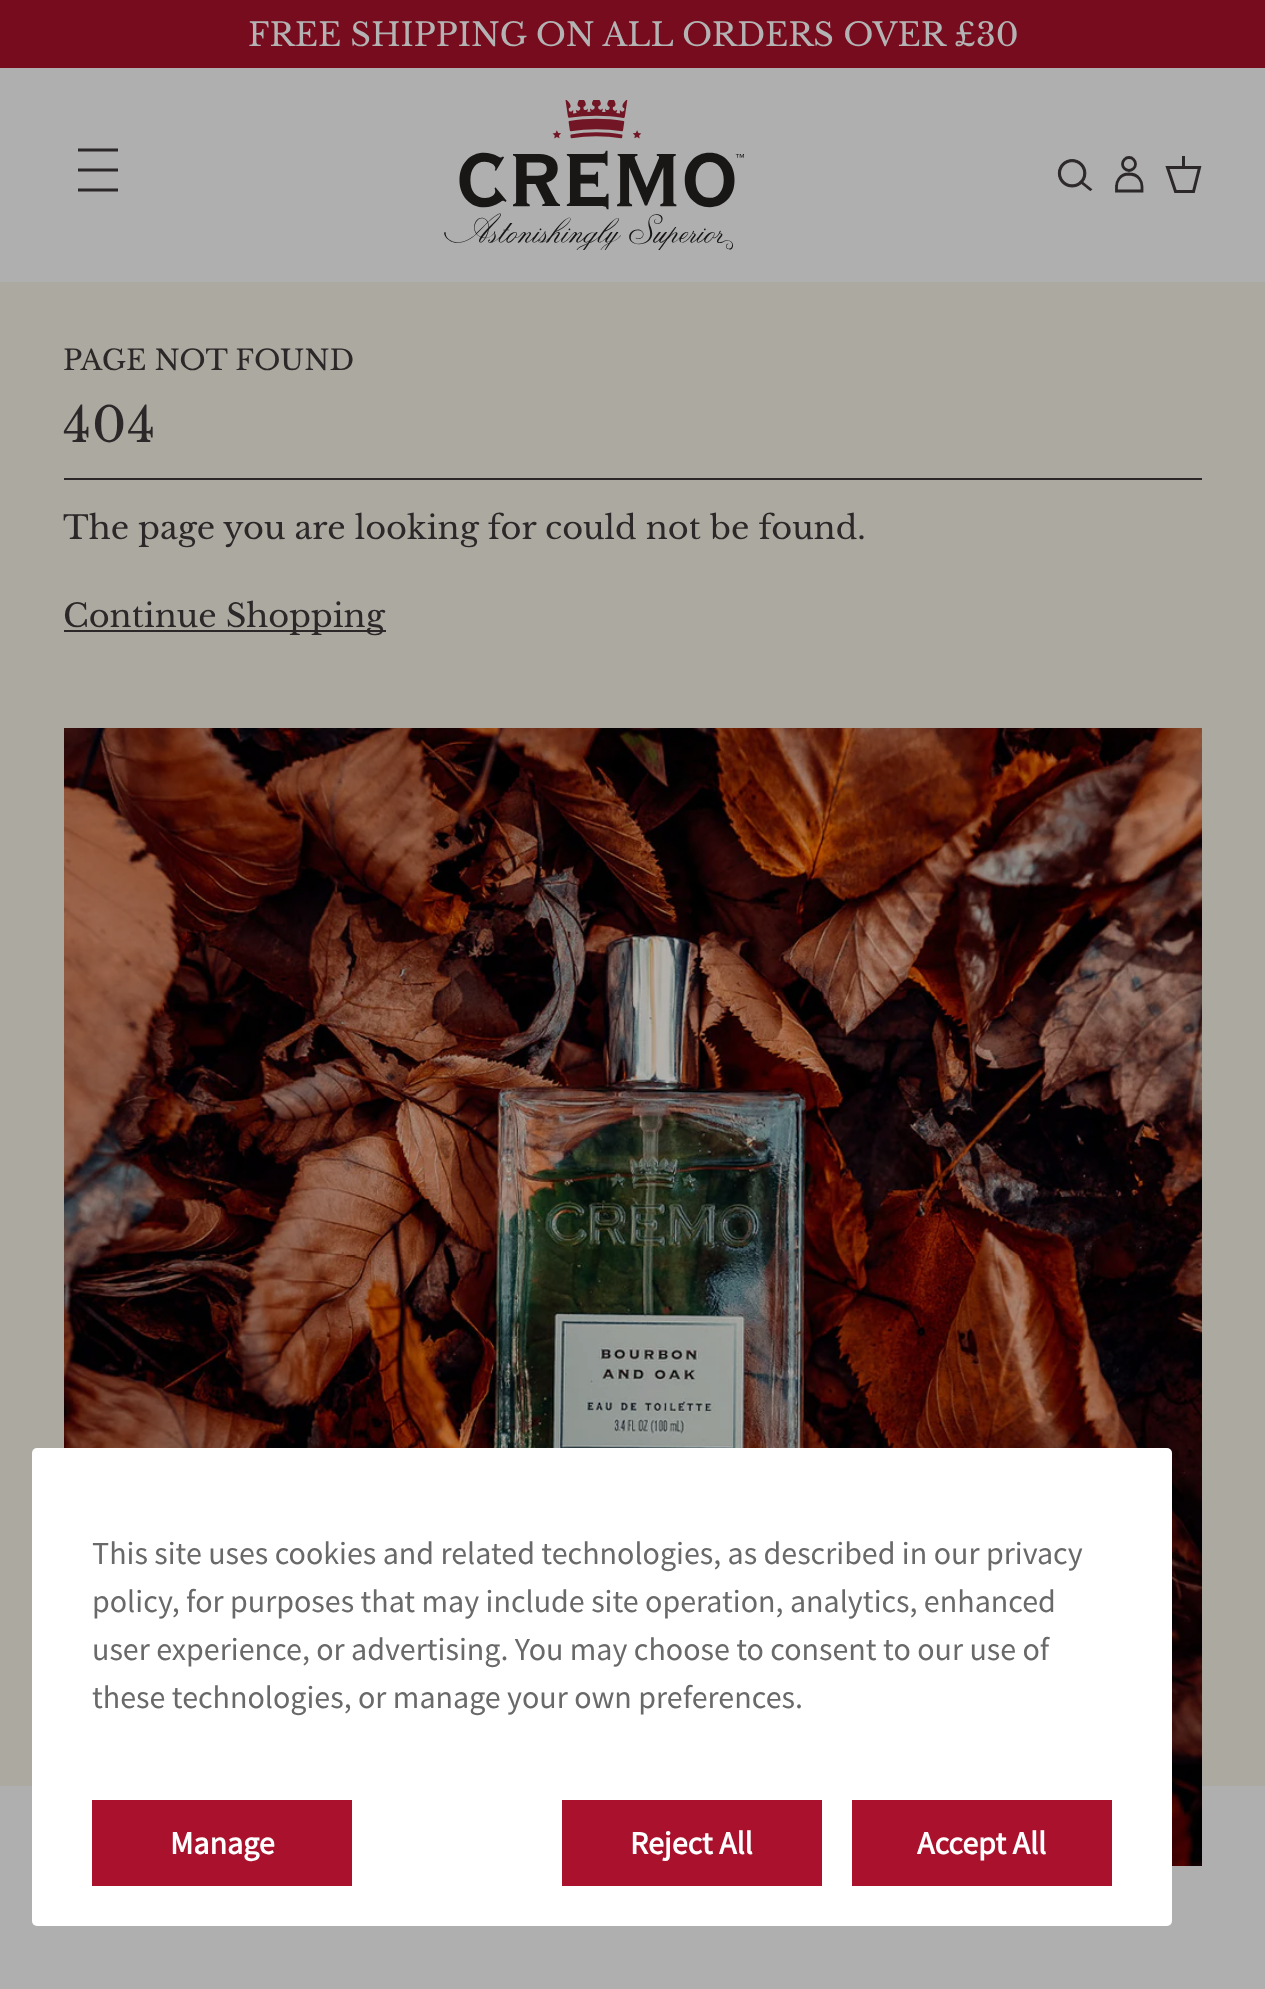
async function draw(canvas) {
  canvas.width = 1265
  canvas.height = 1989
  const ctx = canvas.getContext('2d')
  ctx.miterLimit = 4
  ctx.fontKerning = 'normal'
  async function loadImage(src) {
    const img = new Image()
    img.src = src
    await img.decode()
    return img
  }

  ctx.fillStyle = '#afafaf'
  ctx.fillRect(0, 0, 1265, 1989)
  ctx.fillStyle = '#770c1f'
  ctx.fillRect(0, 0, 1265, 68)
  ctx.font = '32px Libre Baskerville'
  ctx.fillStyle = '#b3b3b3'
  ctx.fillText('FREE SHIPPING ON ALL ORDERS OVER £30', 248, 46)
  ctx.beginPath()
  ctx.moveTo(78, 150)
  ctx.lineTo(118, 150)
  ctx.moveTo(78, 170)
  ctx.lineTo(118, 170)
  ctx.moveTo(78, 190)
  ctx.lineTo(118, 190)
  ctx.strokeStyle = '#2c2728'
  ctx.lineWidth = 3
  ctx.stroke()
  ctx.drawImage(await loadImage('image0.png'), 444, 100, 300, 150)
  ctx.drawImage(await loadImage('image1.png'), 1057, 159, 36, 32)
  ctx.beginPath()
  ctx.arc(1129, 164, 6.5, 0, 2 * Math.PI)
  ctx.lineWidth = 2.8
  ctx.stroke()
  ctx.beginPath()
  ctx.moveTo(1116.5, 186.5)
  ctx.bezierCurveTo(1116.5, 182.5, 1119, 174, 1129, 174)
  ctx.moveTo(1129, 174)
  ctx.bezierCurveTo(1139.5, 174, 1142, 182.5, 1142, 186.5)
  ctx.lineTo(1142, 191)
  ctx.lineTo(1116.5, 191)
  ctx.lineTo(1116.5, 186.5)
  ctx.lineCap = 'square'
  ctx.stroke()
  ctx.beginPath()
  ctx.moveTo(1199.5, 167.5)
  ctx.lineTo(1167.5, 167.5)
  ctx.lineTo(1175.5, 191.5)
  ctx.lineTo(1193.5, 191.5)
  ctx.closePath()
  ctx.lineWidth = 3
  ctx.lineCap = 'butt'
  ctx.stroke()
  ctx.fillStyle = '#2c2728'
  ctx.fillRect(1182, 156, 3, 11)
  ctx.fillStyle = '#aca9a0'
  ctx.fillRect(0, 282, 1265, 1504)
  ctx.font = '28px Libre Baskerville'
  ctx.fillStyle = '#2c2728'
  ctx.fillText('PAGE NOT FOUND', 63, 370)
  ctx.fillRect(64, 478, 1138, 2)
  ctx.letterSpacing = '1px'
  ctx.font = '48px Libre Baskerville'
  ctx.fillText('404', 63, 442)
  ctx.letterSpacing = '0px'
  ctx.font = '32px Libre Baskerville'
  ctx.fillText('The page you are looking for could not be found.', 63, 539)
  ctx.fillRect(64, 630, 322, 2)
  ctx.fillText('Continue Shopping', 63, 627)
  ctx.drawImage(await loadImage('image2.png'), 64, 728, 1138, 1138)
  ctx.fillStyle = '#fff'
  ctx.beginPath()
  ctx.roundRect(32, 1448, 1140, 478, 5)
  ctx.fill()
  ctx.font = '32px Source Sans Pro'
  ctx.fillStyle = '#696969'
  ctx.fillText('This site uses cookies and related technologies, as described in our privacy', 92, 1564)
  ctx.fillText('policy, for purposes that may include site operation, analytics, enhanced', 92, 1612)
  ctx.fillText('user experience, or advertising. You may choose to consent to our use of', 92, 1660)
  ctx.fillText('these technologies, or manage your own preferences.', 92, 1708)
  ctx.fillStyle = '#a9112c'
  ctx.fillRect(92, 1800, 260, 86)
  ctx.font = 'bold 32px Source Sans Pro'
  ctx.fillStyle = '#fff'
  ctx.fillText('Manage', 170, 1854)
  ctx.fillStyle = '#a9112c'
  ctx.fillRect(562, 1800, 260, 86)
  ctx.fillStyle = '#fff'
  ctx.fillText('Reject All', 630, 1854)
  ctx.fillStyle = '#a9112c'
  ctx.fillRect(852, 1800, 260, 86)
  ctx.fillStyle = '#fff'
  ctx.fillText('Accept All', 917, 1854)
}

draw(document.querySelector('canvas'))
